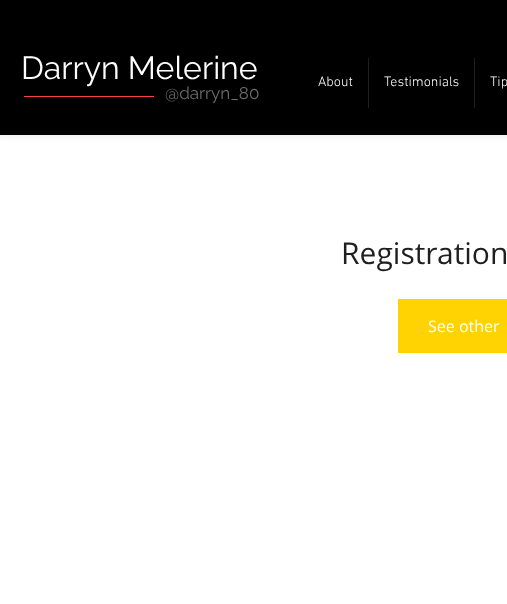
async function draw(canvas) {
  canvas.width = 507
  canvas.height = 604
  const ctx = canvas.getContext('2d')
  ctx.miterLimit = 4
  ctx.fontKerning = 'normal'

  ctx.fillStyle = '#fff'
  ctx.fillRect(0, 0, 507, 604)
  ctx.fillStyle = '#0000000d'
  ctx.filter = 'blur(2.5px)'
  ctx.beginPath()
  ctx.rect(-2, -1, 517, 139)
  ctx.fill()
  ctx.filter = 'none'
  ctx.fillStyle = '#000'
  ctx.fillRect(0, 0, 507, 135)
  ctx.font = '32px Raleway'
  ctx.fillStyle = '#fff'
  ctx.fillText('Darryn Melerine', 21, 79)
  ctx.font = '300 14px "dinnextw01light"'
  ctx.fillText('About', 318, 86)
  ctx.fillStyle = '#1f1f1f'
  ctx.fillRect(368, 58, 1, 50)
  ctx.fillStyle = '#fff'
  ctx.fillText('Testimonials', 384, 86)
  ctx.fillStyle = '#1f1f1f'
  ctx.fillRect(474, 58, 1, 50)
  ctx.fillStyle = '#fff'
  ctx.fillText('Tip', 490, 86)
  ctx.fillStyle = '#ff4040'
  ctx.fillRect(24, 96, 130, 1)
  ctx.font = '17px Raleway'
  ctx.fillStyle = '#6e6e6e'
  ctx.fillText('@darryn_80', 165, 99)
  ctx.font = '30px Open Sans'
  ctx.fillStyle = '#1f1f1f'
  ctx.fillText('Registration', 341, 264)
  ctx.fillStyle = '#fed301'
  ctx.fillRect(398, 299, 109, 54)
  ctx.font = '16px Open Sans'
  ctx.fillStyle = '#fff'
  ctx.fillText('See other', 428, 332)
}

draw(document.querySelector('canvas'))
